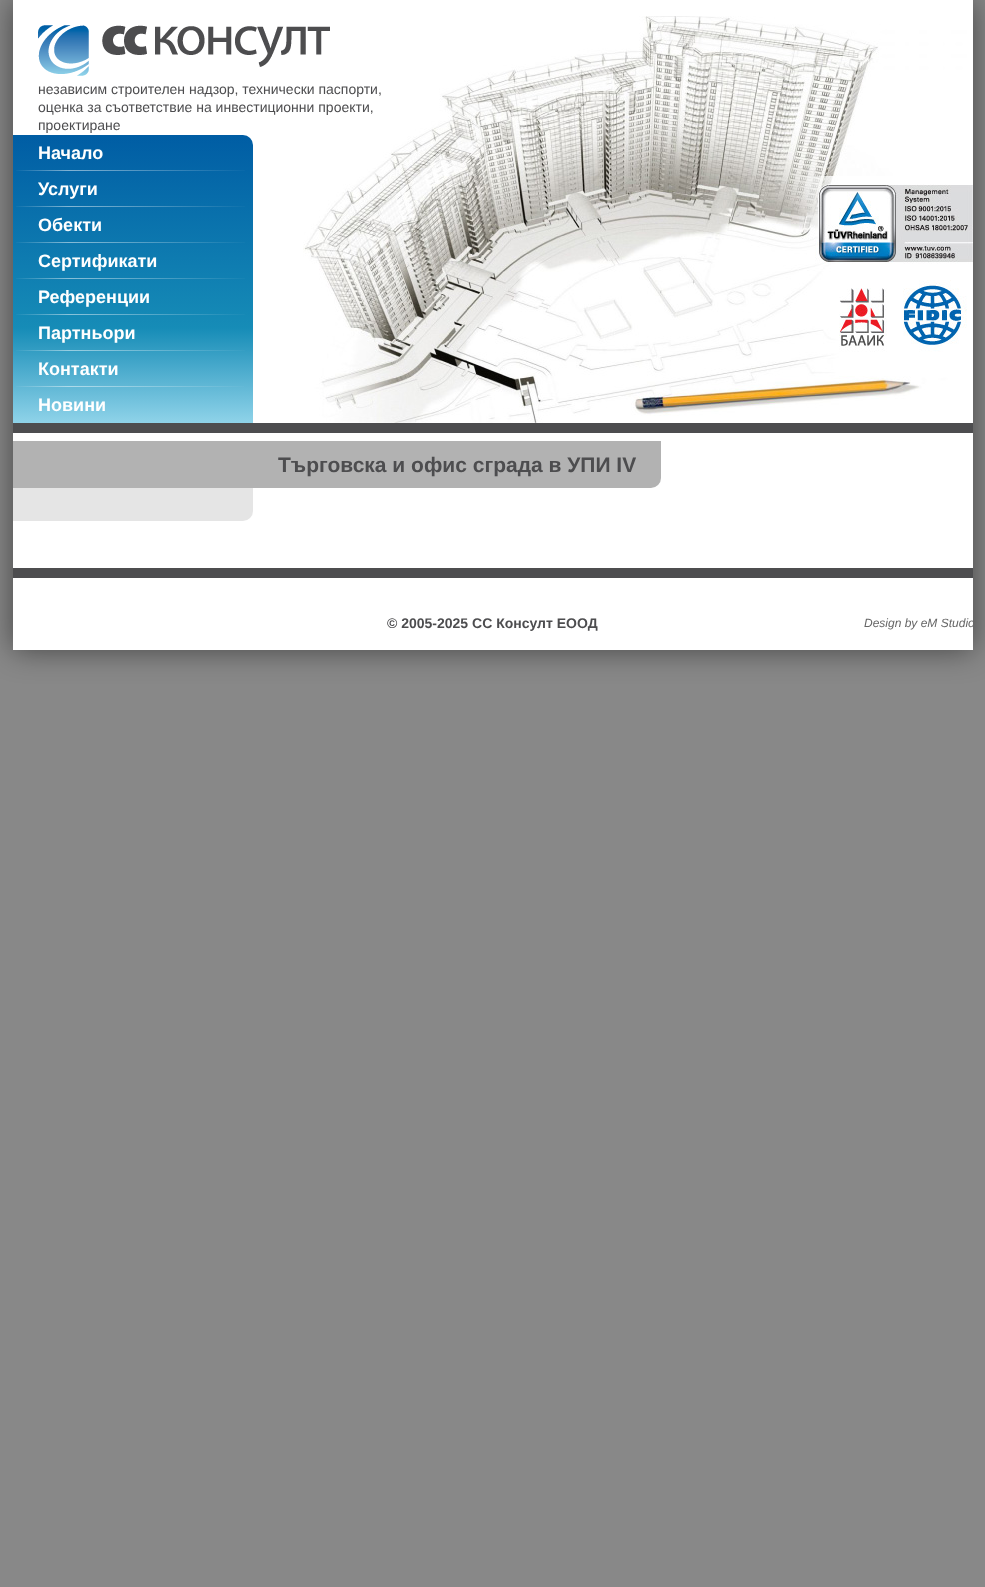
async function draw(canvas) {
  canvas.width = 985
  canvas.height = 1587
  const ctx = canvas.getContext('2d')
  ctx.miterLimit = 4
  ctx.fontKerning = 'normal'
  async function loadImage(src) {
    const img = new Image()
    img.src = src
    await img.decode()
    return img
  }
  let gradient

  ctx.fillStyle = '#888'
  ctx.fillRect(0, 0, 985, 1587)
  ctx.fillStyle = '#00000080'
  ctx.filter = 'blur(15px)'
  ctx.beginPath()
  ctx.rect(13, 0, 960, 650)
  ctx.fill()
  ctx.filter = 'none'
  ctx.fillStyle = '#fff'
  ctx.fillRect(13, 0, 960, 650)
  ctx.fillStyle = '#4d4d4f'
  ctx.fillRect(13, 423, 960, 10)
  ctx.drawImage(await loadImage('image1.png'), 303, 16, 670, 407)
  ctx.drawImage(await loadImage('image0.png'), 38, 25, 292, 51)
  ctx.font = '14px Liberation Sans'
  ctx.fillText('независим строителен надзор, технически паспорти,', 38, 94)
  ctx.fillText('оценка за съответствие на инвестиционни проекти,', 38, 112)
  ctx.fillText('проектиране', 38, 130)
  gradient = ctx.createLinearGradient(133, 135, 133, 423)
  gradient.addColorStop(0, '#005da4')
  gradient.addColorStop(0.67, '#168cb7')
  gradient.addColorStop(1, '#8fd3e9')
  ctx.fillStyle = gradient
  ctx.beginPath()
  ctx.roundRect(13, 135, 240, 288, [0, 10, 0, 0])
  ctx.fill()
  ctx.drawImage(await loadImage('image2.png'), 16, 170, 229, 1)
  ctx.font = 'bold 18px Liberation Sans'
  ctx.fillStyle = '#fff'
  ctx.fillText('Начало', 38, 159)
  ctx.drawImage(await loadImage('image3.png'), 16, 206, 229, 1)
  ctx.fillText('Услуги', 38, 195)
  ctx.drawImage(await loadImage('image4.png'), 16, 242, 229, 1)
  ctx.fillText('Обекти', 38, 231)
  ctx.drawImage(await loadImage('image5.png'), 16, 278, 229, 1)
  ctx.fillText('Сертификати', 38, 267)
  ctx.drawImage(await loadImage('image6.png'), 16, 314, 229, 1)
  ctx.fillText('Референции', 38, 303)
  ctx.drawImage(await loadImage('image7.png'), 16, 350, 229, 1)
  ctx.fillText('Партньори', 38, 339)
  ctx.drawImage(await loadImage('image8.png'), 16, 386, 228, 1)
  ctx.fillText('Контакти', 38, 375)
  ctx.fillText('Новини', 38, 411)
  ctx.fillStyle = '#b2b2b2'
  ctx.beginPath()
  ctx.roundRect(13, 441, 648, 47, [0, 0, 10, 0])
  ctx.fill()
  ctx.font = 'bold 21px Liberation Sans'
  ctx.fillStyle = '#4d4d4f'
  ctx.fillText('Търговска и офис сграда в УПИ IV', 278, 472)
  ctx.fillStyle = '#e5e5e5'
  ctx.beginPath()
  ctx.roundRect(13, 488, 240, 33, [0, 0, 10, 0])
  ctx.fill()
  ctx.fillStyle = '#4d4d4f'
  ctx.fillRect(13, 568, 960, 10)
  ctx.font = 'bold 14px Liberation Sans'
  ctx.fillText('© 2005-2025 СС Консулт ЕООД', 387, 628)
  ctx.font = 'italic 12px Liberation Sans'
  ctx.fillStyle = '#666'
  ctx.fillText('Design by eM Studio', 864, 627)
}

draw(document.querySelector('canvas'))
